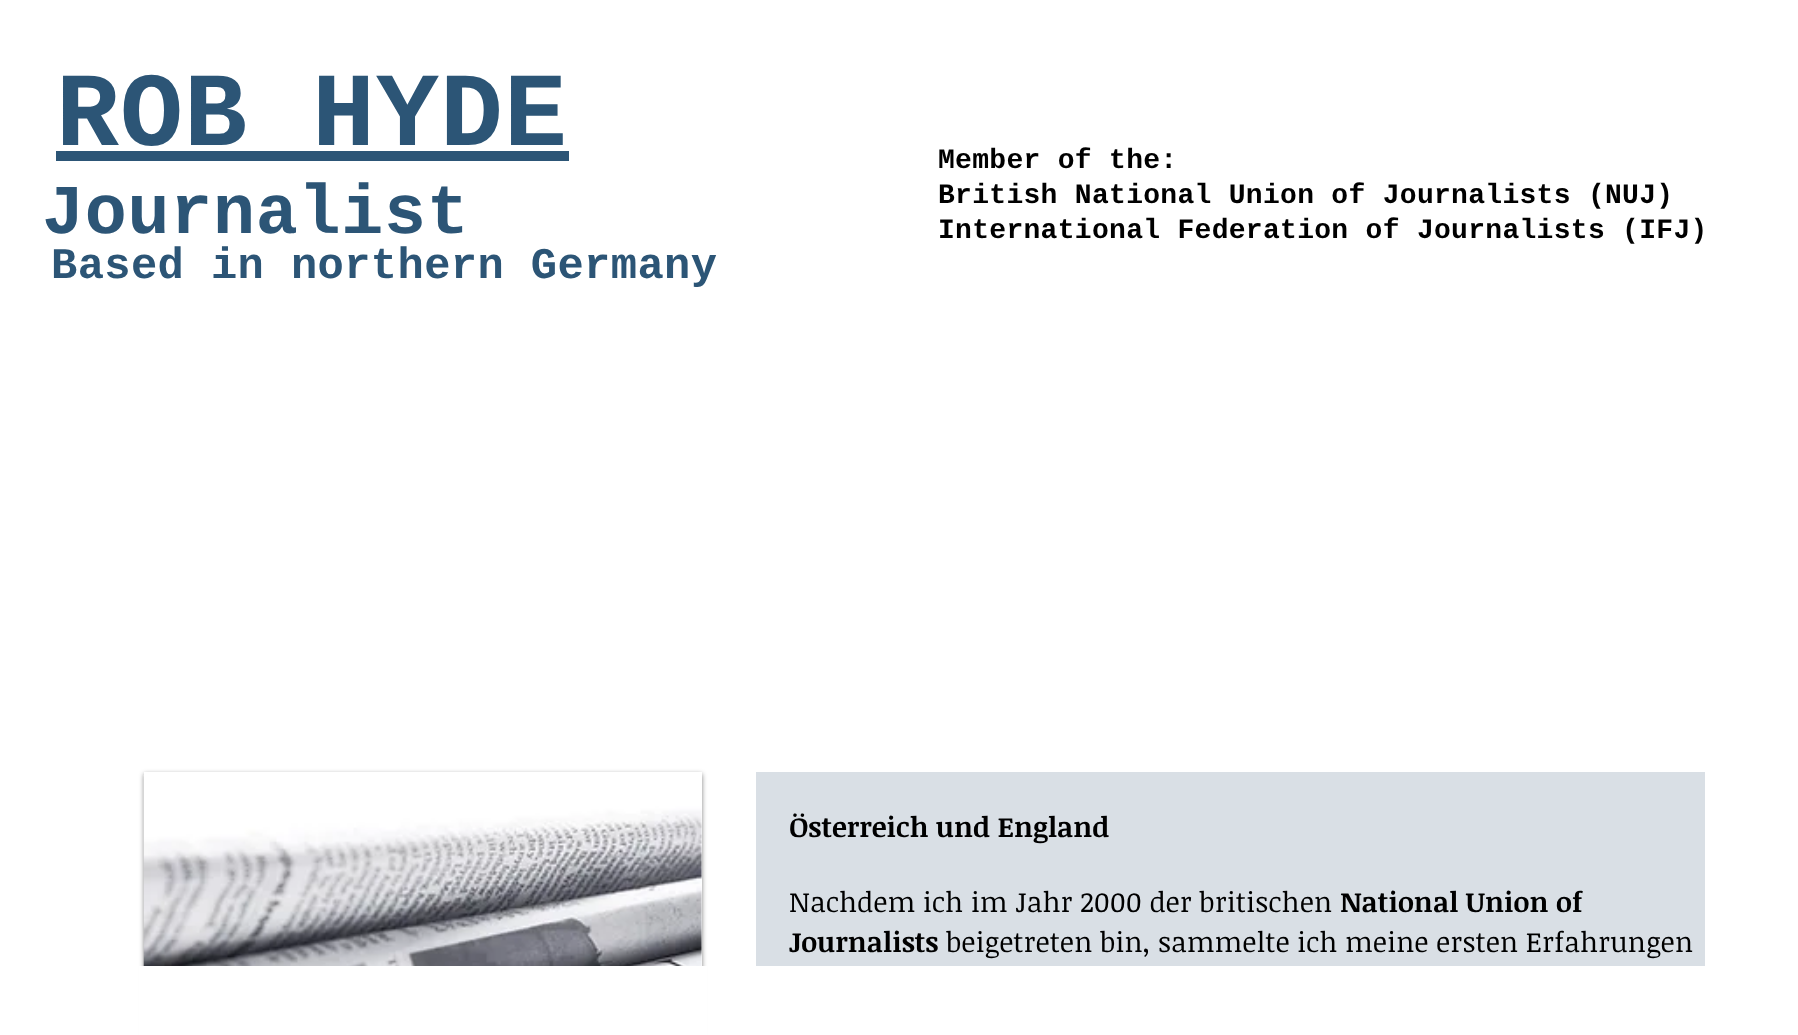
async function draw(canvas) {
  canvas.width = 1798
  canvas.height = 1035
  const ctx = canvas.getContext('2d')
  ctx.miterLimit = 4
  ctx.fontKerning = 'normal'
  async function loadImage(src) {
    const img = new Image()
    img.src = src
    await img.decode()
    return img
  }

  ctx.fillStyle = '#fff'
  ctx.fillRect(0, 0, 1798, 1035)
  ctx.letterSpacing = '1px'
  ctx.font = 'bold 105px Liberation Mono'
  ctx.fillStyle = '#2c5576'
  ctx.fillText('ROB HYDE', 56, 145)
  ctx.fillRect(56, 151, 513, 10)
  ctx.letterSpacing = '0.75px'
  ctx.font = 'bold 70px Liberation Mono'
  ctx.fillText('Journalist', 42, 233)
  ctx.letterSpacing = '0.3px'
  ctx.font = 'bold 28px Liberation Mono'
  ctx.fillStyle = '#000'
  ctx.fillText('Member of the:', 938, 168)
  ctx.fillText('British National Union of Journalists (NUJ)', 938, 203)
  ctx.fillText('International Federation of Journalists (IFJ)', 938, 238)
  ctx.letterSpacing = '0.4px'
  ctx.font = 'bold 43.75px Liberation Mono'
  ctx.fillStyle = '#2c5576'
  ctx.fillText('Based in northern Germany', 51, 278)
  ctx.fillStyle = '#00000080'
  ctx.filter = 'blur(2.5px)'
  ctx.beginPath()
  ctx.rect(144, 774, 558, 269)
  ctx.fill()
  ctx.filter = 'none'
  ctx.fillStyle = '#fff'
  ctx.fillRect(144, 772, 558, 194)
  ctx.drawImage(await loadImage('image0.png'), 143, 775, 559, 191)
  ctx.fillStyle = '#d9dfe5'
  ctx.fillRect(756, 772, 949, 194)
  ctx.letterSpacing = '0px'
  ctx.font = 'bold 28px Noticia Text'
  ctx.fillStyle = '#000'
  ctx.fillText('Österreich und England', 789, 837)
  ctx.font = '28px Noticia Text'
  ctx.fillText('Nachdem ich im Jahr 2000 der britischen', 789, 912)
  ctx.font = 'bold 28px Noticia Text'
  ctx.fillText('National Union of', 1340, 912)
  ctx.fillText('Journalists', 789, 952)
  ctx.font = '28px Noticia Text'
  ctx.fillText('beigetreten bin, sammelte ich meine ersten Erfahrungen', 946, 952)
  ctx.fillStyle = '#fff'
  ctx.fillRect(139, 966, 568, 69)
}

draw(document.querySelector('canvas'))
